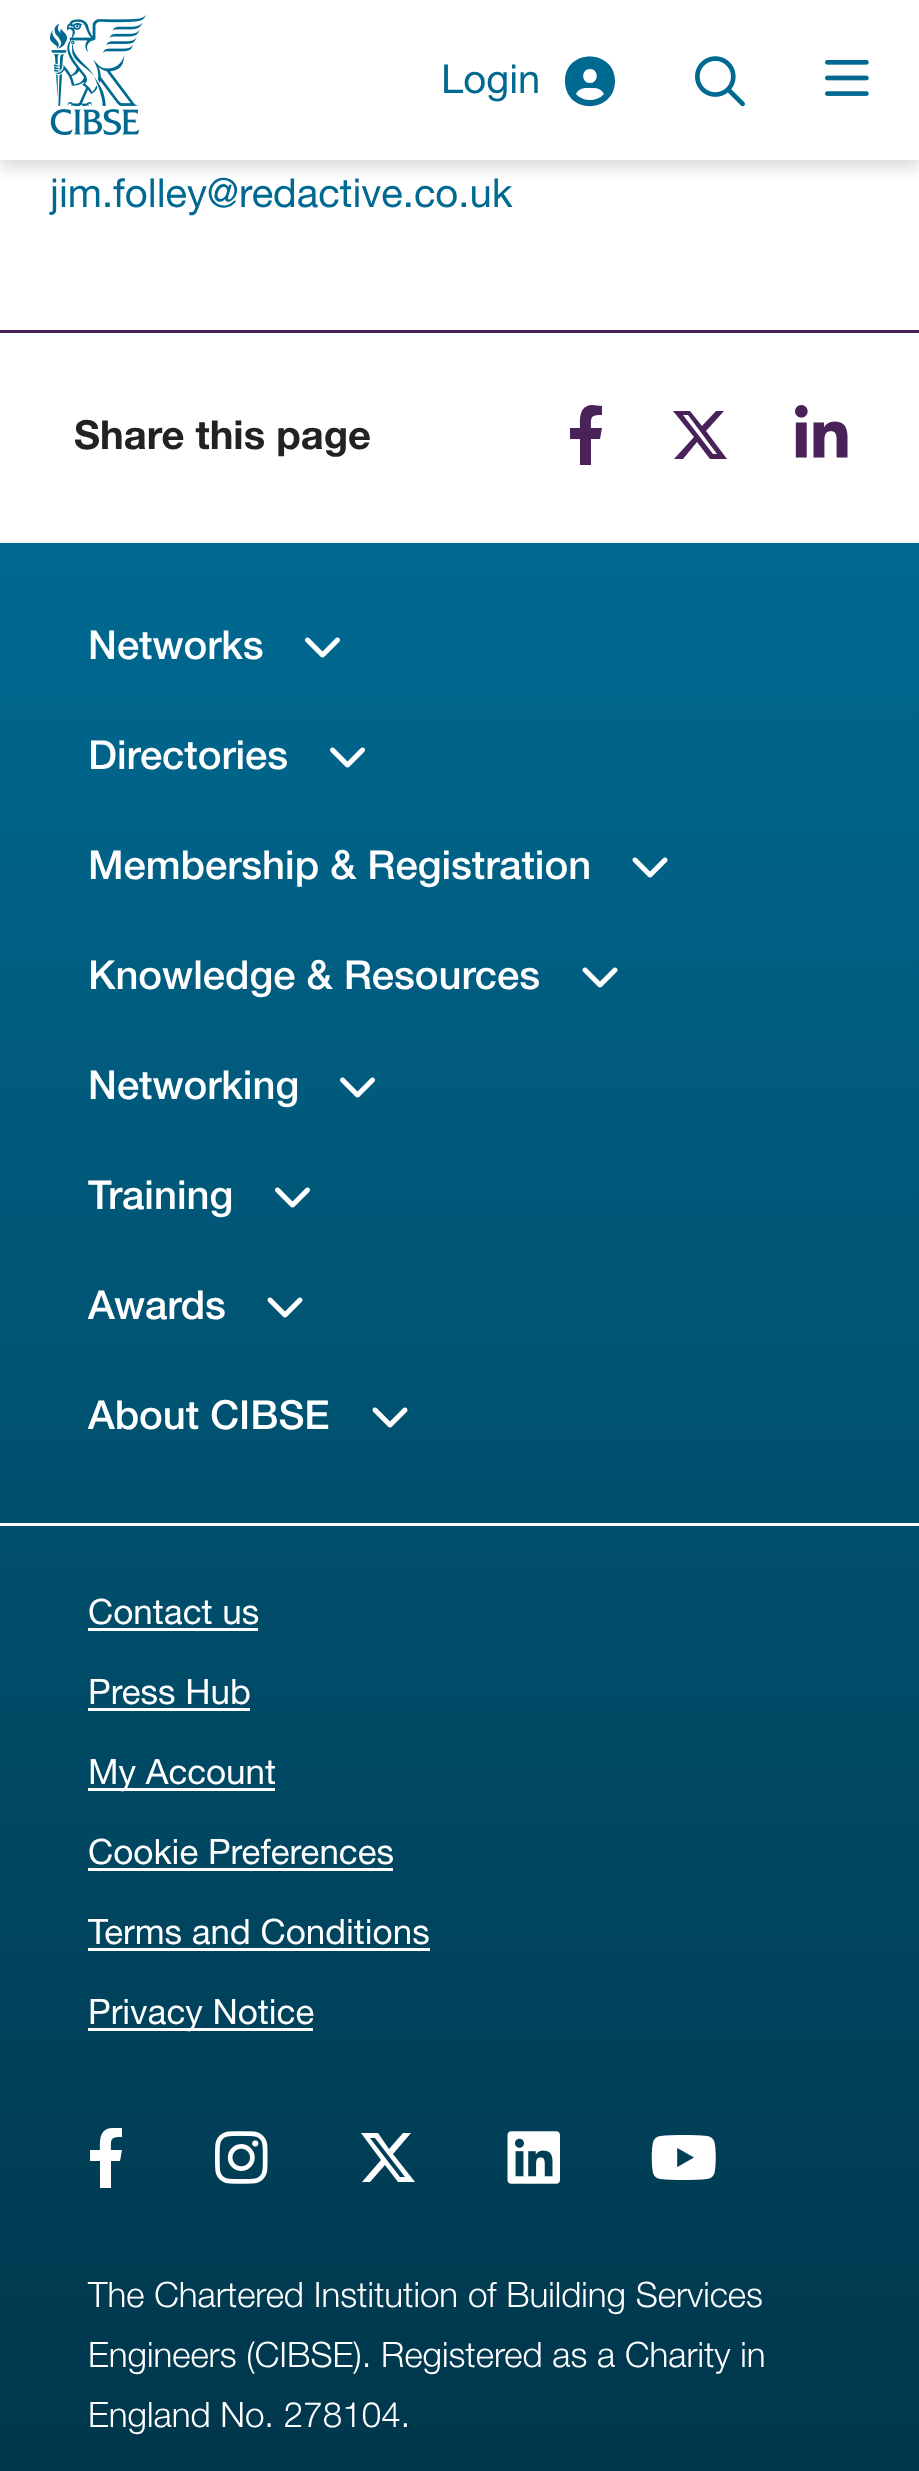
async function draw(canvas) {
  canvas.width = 919
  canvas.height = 2471
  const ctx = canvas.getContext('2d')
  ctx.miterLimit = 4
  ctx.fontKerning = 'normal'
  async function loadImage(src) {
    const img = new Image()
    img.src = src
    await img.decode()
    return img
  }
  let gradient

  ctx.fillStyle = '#fff'
  ctx.fillRect(0, 0, 919, 2471)
  ctx.fillStyle = '#22222229'
  ctx.filter = 'blur(7.5px)'
  ctx.beginPath()
  ctx.rect(0, 8, 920, 160)
  ctx.fill()
  ctx.filter = 'none'
  ctx.fillStyle = '#fff'
  ctx.fillRect(0, 0, 919, 160)
  ctx.drawImage(await loadImage('image0.png'), 49, 15, 98, 120)
  ctx.font = '40px Helvetica Neue'
  ctx.fillStyle = '#006991'
  ctx.fillText('Login', 441, 93)
  ctx.beginPath()
  ctx.moveTo(604, 94)
  ctx.bezierCurveTo(601, 88, 596, 88, 590, 88)
  ctx.bezierCurveTo(584, 88, 579, 88, 576, 94)
  ctx.bezierCurveTo(583, 102, 597, 102, 604, 94)
  ctx.closePath()
  ctx.moveTo(565, 81)
  ctx.bezierCurveTo(565, 48, 615, 49, 615, 81)
  ctx.bezierCurveTo(615, 114, 565, 115, 565, 81)
  ctx.closePath()
  ctx.moveTo(590, 83)
  ctx.bezierCurveTo(599, 83, 599, 69, 590, 69)
  ctx.bezierCurveTo(581, 69, 581, 83, 590, 83)
  ctx.closePath()
  ctx.fill()
  ctx.drawImage(await loadImage('image1.png'), 695, 56, 50, 51)
  ctx.drawImage(await loadImage('image2.png'), 825, 60, 44, 36)
  ctx.fillText('jim.folley@redactive.co.uk', 50, 207)
  ctx.fillStyle = '#49225a'
  ctx.fillRect(0, 330, 919, 3)
  ctx.font = 'bold 40px Helvetica Neue'
  ctx.fillStyle = '#222'
  ctx.fillText('Share this page', 74, 449)
  ctx.fillStyle = '#49225a'
  ctx.beginPath()
  ctx.moveTo(600, 439)
  ctx.lineTo(602, 428)
  ctx.lineTo(591, 428)
  ctx.bezierCurveTo(591, 417, 590, 415, 602, 415)
  ctx.lineTo(602, 406)
  ctx.lineTo(592, 405)
  ctx.bezierCurveTo(579, 406, 580, 418, 580, 428)
  ctx.lineTo(570, 428)
  ctx.lineTo(570, 439)
  ctx.lineTo(580, 439)
  ctx.lineTo(580, 465)
  ctx.lineTo(591, 465)
  ctx.lineTo(591, 439)
  ctx.closePath()
  ctx.fill()
  ctx.beginPath()
  ctx.moveTo(716, 411)
  ctx.lineTo(724, 411)
  ctx.lineTo(706, 431)
  ctx.lineTo(727, 459)
  ctx.lineTo(710, 459)
  ctx.lineTo(697, 442)
  ctx.lineTo(683, 459)
  ctx.lineTo(674, 459)
  ctx.lineTo(694, 437)
  ctx.lineTo(673, 411)
  ctx.lineTo(690, 411)
  ctx.lineTo(702, 426)
  ctx.closePath()
  ctx.moveTo(713, 454)
  ctx.lineTo(717, 454)
  ctx.lineTo(688, 415)
  ctx.lineTo(683, 415)
  ctx.closePath()
  ctx.fill()
  ctx.drawImage(await loadImage('image3.png'), 795, 405, 53, 53)
  gradient = ctx.createLinearGradient(460, 543, 460, 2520)
  gradient.addColorStop(0, '#006991')
  gradient.addColorStop(1, '#003549')
  ctx.fillStyle = gradient
  ctx.fillRect(0, 543, 919, 1928)
  ctx.font = '500 40px Helvetica Neue'
  ctx.fillStyle = '#fff'
  ctx.fillText('Networks', 88, 659)
  ctx.drawImage(await loadImage('image4.png'), 305, 637, 35, 21)
  ctx.fillText('Directories', 88, 769)
  ctx.drawImage(await loadImage('image5.png'), 330, 747, 35, 21)
  ctx.fillText('Membership & Registration', 88, 879)
  ctx.drawImage(await loadImage('image6.png'), 632, 857, 36, 21)
  ctx.fillText('Knowledge & Resources', 88, 989)
  ctx.drawImage(await loadImage('image7.png'), 582, 967, 36, 21)
  ctx.fillText('Networking', 88, 1099)
  ctx.drawImage(await loadImage('image8.png'), 340, 1077, 35, 21)
  ctx.fillText('Training', 88, 1209)
  ctx.drawImage(await loadImage('image9.png'), 275, 1187, 35, 21)
  ctx.fillText('Awards', 88, 1319)
  ctx.drawImage(await loadImage('image10.png'), 267, 1297, 36, 21)
  ctx.fillText('About CIBSE', 88, 1429)
  ctx.drawImage(await loadImage('image11.png'), 372, 1407, 36, 21)
  ctx.fillRect(0, 1523, 919, 3)
  ctx.font = '35px Helvetica Neue'
  ctx.fillText('Contact us', 88, 1624)
  ctx.fillRect(88, 1628, 170, 3)
  ctx.fillText('Press Hub', 88, 1704)
  ctx.fillRect(88, 1708, 162, 3)
  ctx.fillRect(88, 1788, 187, 3)
  ctx.fillText('My Account', 88, 1784)
  ctx.fillText('Cookie Preferences', 88, 1864)
  ctx.fillRect(88, 1868, 305, 3)
  ctx.fillText('Terms and Conditions', 88, 1944)
  ctx.fillRect(88, 1948, 342, 3)
  ctx.fillRect(88, 2028, 225, 3)
  ctx.fillText('Privacy Notice', 88, 2024)
  ctx.beginPath()
  ctx.moveTo(120, 2161)
  ctx.lineTo(122, 2150)
  ctx.lineTo(111, 2150)
  ctx.bezierCurveTo(111, 2139, 110, 2137, 122, 2137)
  ctx.lineTo(122, 2128)
  ctx.lineTo(112, 2128)
  ctx.bezierCurveTo(99, 2129, 100, 2140, 100, 2150)
  ctx.lineTo(90, 2150)
  ctx.lineTo(90, 2161)
  ctx.lineTo(100, 2161)
  ctx.lineTo(100, 2188)
  ctx.lineTo(111, 2188)
  ctx.lineTo(111, 2161)
  ctx.closePath()
  ctx.fill()
  ctx.drawImage(await loadImage('image12.png'), 215, 2131, 53, 53)
  ctx.beginPath()
  ctx.moveTo(403, 2133)
  ctx.lineTo(411, 2133)
  ctx.lineTo(393, 2154)
  ctx.lineTo(415, 2182)
  ctx.lineTo(398, 2182)
  ctx.lineTo(385, 2165)
  ctx.lineTo(370, 2182)
  ctx.lineTo(362, 2182)
  ctx.lineTo(381, 2160)
  ctx.lineTo(361, 2133)
  ctx.lineTo(378, 2133)
  ctx.lineTo(389, 2149)
  ctx.closePath()
  ctx.moveTo(400, 2177)
  ctx.lineTo(405, 2177)
  ctx.lineTo(375, 2138)
  ctx.lineTo(370, 2138)
  ctx.closePath()
  ctx.fill()
  ctx.drawImage(await loadImage('image13.png'), 507, 2131, 53, 53)
  ctx.drawImage(await loadImage('image14.png'), 651, 2135, 65, 45)
  ctx.font = '300 35px Helvetica Neue'
  ctx.fillText('The Chartered Institution of Building Services', 88, 2307)
  ctx.fillText('Engineers (CIBSE). Registered as a Charity in', 88, 2367)
  ctx.fillText('England No. 278104.', 88, 2427)
}

draw(document.querySelector('canvas'))
